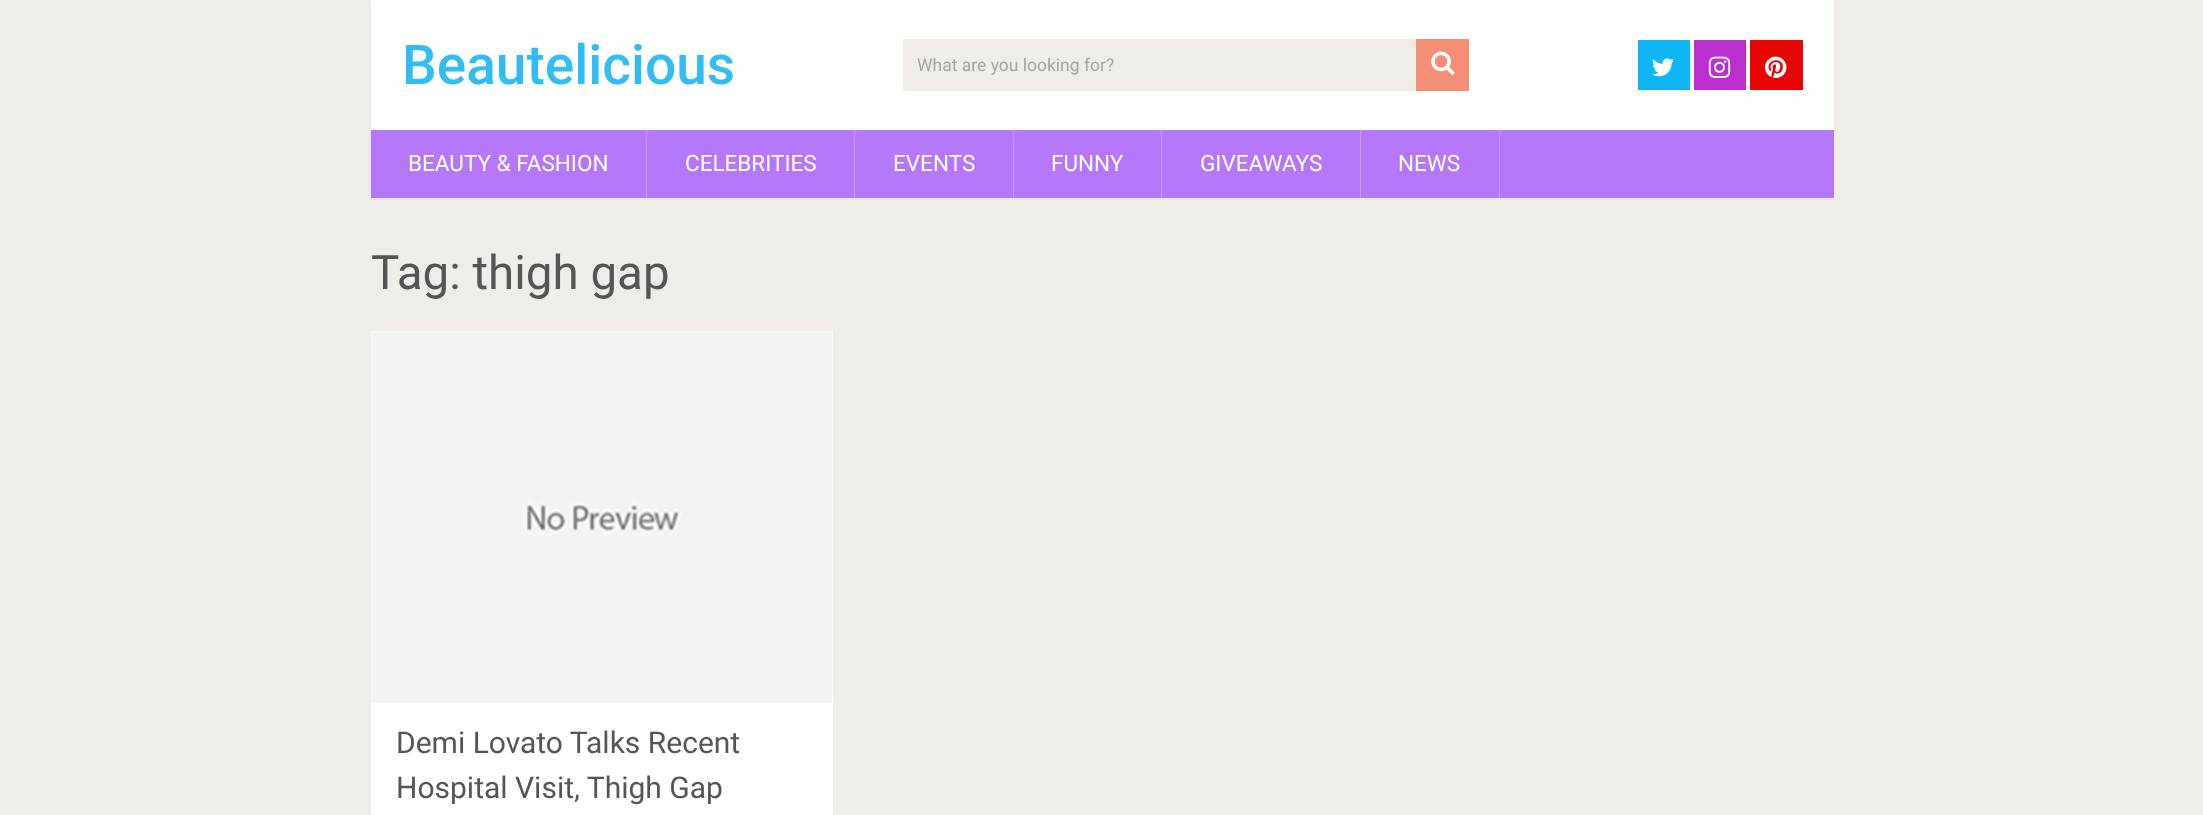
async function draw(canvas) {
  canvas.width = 2203
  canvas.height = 815
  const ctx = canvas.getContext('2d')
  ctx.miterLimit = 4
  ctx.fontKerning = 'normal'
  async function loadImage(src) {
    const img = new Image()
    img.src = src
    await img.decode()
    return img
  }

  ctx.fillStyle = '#f0ede9'
  ctx.fillRect(0, 0, 2203, 815)
  ctx.fillStyle = '#0000000d'
  ctx.filter = 'blur(1px)'
  ctx.beginPath()
  ctx.rect(371, 1, 1463, 198)
  ctx.fill()
  ctx.filter = 'none'
  ctx.fillStyle = '#fff'
  ctx.fillRect(371, 0, 1463, 130)
  ctx.font = '500 55px Roboto'
  ctx.fillStyle = '#33bcf2'
  ctx.fillText('Beautelicious', 402, 84)
  ctx.fillStyle = '#f0ede9'
  ctx.fillRect(904, 40, 512, 50)
  ctx.strokeStyle = '#efebe7'
  ctx.strokeRect(903.5, 39.5, 565, 51)
  ctx.font = '17.5px Roboto'
  ctx.fillStyle = '#a4a4a4'
  ctx.fillText('What are you looking for?', 917, 71)
  ctx.fillStyle = '#f48e75'
  ctx.fillRect(1416, 39, 53, 52)
  ctx.drawImage(await loadImage('image0.png'), 1431, 51, 24, 24)
  ctx.fillStyle = '#0eb6f6'
  ctx.fillRect(1638, 40, 52, 50)
  ctx.drawImage(await loadImage('image1.png'), 1652, 58, 22, 19)
  ctx.fillStyle = '#bb2fce'
  ctx.fillRect(1694, 40, 52, 50)
  ctx.drawImage(await loadImage('image2.png'), 1708, 56, 23, 22)
  ctx.fillStyle = '#e80404'
  ctx.fillRect(1750, 40, 53, 50)
  ctx.drawImage(await loadImage('image3.png'), 1765, 56, 22, 22)
  ctx.fillStyle = '#b477f9'
  ctx.fillRect(371, 130, 1463, 68)
  ctx.fillStyle = '#c595fa'
  ctx.fillRect(646, 130, 1, 68)
  ctx.font = '22.5px Roboto'
  ctx.fillStyle = '#fff'
  ctx.fillText('BEAUTY & FASHION', 408, 171)
  ctx.fillStyle = '#c595fa'
  ctx.fillRect(854, 130, 1, 68)
  ctx.fillStyle = '#fff'
  ctx.fillText('CELEBRITIES', 685, 171)
  ctx.fillStyle = '#c595fa'
  ctx.fillRect(1013, 130, 1, 68)
  ctx.fillStyle = '#fff'
  ctx.fillText('EVENTS', 893, 171)
  ctx.fillStyle = '#c595fa'
  ctx.fillRect(1161, 130, 1, 68)
  ctx.fillStyle = '#fff'
  ctx.fillText('FUNNY', 1051, 171)
  ctx.fillStyle = '#c595fa'
  ctx.fillRect(1360, 130, 1, 68)
  ctx.fillStyle = '#fff'
  ctx.fillText('GIVEAWAYS', 1200, 171)
  ctx.fillStyle = '#c595fa'
  ctx.fillRect(1499, 130, 1, 68)
  ctx.fillStyle = '#fff'
  ctx.fillText('NEWS', 1398, 171)
  ctx.font = '47.5px Roboto'
  ctx.fillStyle = '#555'
  ctx.fillText('Tag: thigh gap', 371, 289)
  ctx.fillStyle = '#fff'
  ctx.fillRect(371, 331, 462, 484)
  ctx.drawImage(await loadImage('image4.png'), 371, 331, 462, 372)
  ctx.font = '30px Roboto'
  ctx.fillStyle = '#555'
  ctx.fillText('Demi Lovato Talks Recent', 396, 753)
  ctx.fillText('Hospital Visit, Thigh Gap', 396, 798)
}

draw(document.querySelector('canvas'))
